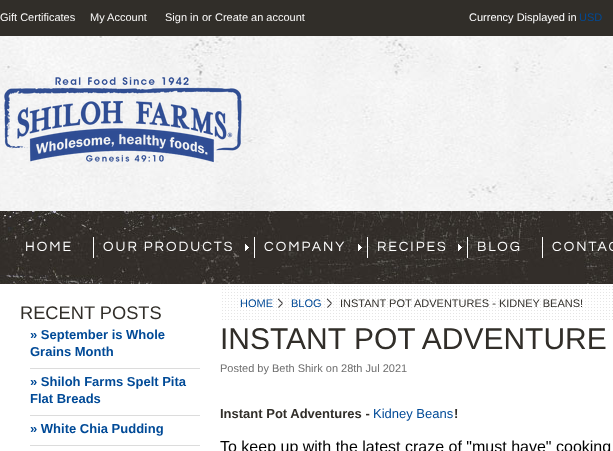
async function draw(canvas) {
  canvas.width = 613
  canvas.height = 451
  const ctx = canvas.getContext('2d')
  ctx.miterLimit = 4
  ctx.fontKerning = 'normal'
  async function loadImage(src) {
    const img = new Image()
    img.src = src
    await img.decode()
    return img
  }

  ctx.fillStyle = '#fff'
  ctx.fillRect(0, 0, 613, 451)
  ctx.drawImage(await loadImage('image0.png'), 0, 36, 613, 175)
  ctx.fillStyle = '#312e29'
  ctx.fillRect(0, 0, 613, 36)
  ctx.font = '11px Liberation Sans'
  ctx.fillStyle = '#faf9f8'
  ctx.fillText('Gift Certificates', 0, 21)
  ctx.fillText('My Account', 90, 21)
  ctx.fillText('Sign in', 165, 21)
  ctx.fillStyle = '#fff'
  ctx.fillText('or', 202, 21)
  ctx.fillStyle = '#faf9f8'
  ctx.fillText('Create an account', 215, 21)
  ctx.fillStyle = '#fff'
  ctx.fillText('Currency Displayed in', 469, 21)
  ctx.fillStyle = '#004a97'
  ctx.fillText('USD', 579, 21)
  ctx.drawImage(await loadImage('image1.png'), 4, 77, 238, 86)
  ctx.drawImage(await loadImage('image2.png'), 0, 211, 613, 73)
  ctx.letterSpacing = '2px'
  ctx.font = '14px Questrial'
  ctx.fillStyle = '#fff'
  ctx.fillText('HOME', 25, 251)
  ctx.fillRect(93, 237, 1, 21)
  ctx.fillText('OUR PRODUCTS', 103, 251)
  ctx.drawImage(await loadImage('image3.png'), 245, 244, 4, 7)
  ctx.fillRect(254, 237, 1, 21)
  ctx.fillText('COMPANY', 264, 251)
  ctx.drawImage(await loadImage('image4.png'), 358, 244, 4, 7)
  ctx.fillRect(367, 237, 1, 21)
  ctx.fillText('RECIPES', 377, 251)
  ctx.drawImage(await loadImage('image5.png'), 458, 244, 4, 7)
  ctx.fillRect(467, 237, 1, 21)
  ctx.fillText('BLOG', 477, 251)
  ctx.fillRect(542, 237, 1, 21)
  ctx.fillText('CONTAC', 552, 251)
  ctx.letterSpacing = '0px'
  ctx.font = '18.25px Liberation Sans'
  ctx.fillStyle = '#312e29'
  ctx.fillText('RECENT POSTS', 20, 319)
  ctx.fillStyle = '#dcdcdc'
  ctx.fillRect(30, 368, 170, 1)
  ctx.font = 'bold 13px Liberation Sans'
  ctx.fillStyle = '#004a97'
  ctx.fillText('» September is Whole', 30, 339)
  ctx.fillText('Grains Month', 30, 356)
  ctx.fillStyle = '#dcdcdc'
  ctx.fillRect(30, 415, 170, 1)
  ctx.fillStyle = '#004a97'
  ctx.fillText('» Shiloh Farms Spelt Pita', 30, 386)
  ctx.fillText('Flat Breads', 30, 403)
  ctx.fillStyle = '#dcdcdc'
  ctx.fillRect(30, 445, 170, 1)
  ctx.fillStyle = '#004a97'
  ctx.fillText('» White Chia Pudding', 30, 433)
  ctx.drawImage(await loadImage('image6.png'), 222, 286, 391, 34)
  ctx.drawImage(await loadImage('image7.png'), 277, 298, 6, 10)
  ctx.font = '11px Liberation Sans'
  ctx.fillText('HOME', 240, 307)
  ctx.drawImage(await loadImage('image8.png'), 326, 298, 6, 10)
  ctx.fillText('BLOG', 291, 307)
  ctx.fillStyle = '#312e29'
  ctx.fillText('INSTANT POT ADVENTURES - KIDNEY BEANS!', 340, 307)
  ctx.font = '30px Liberation Sans'
  ctx.fillText('INSTANT POT ADVENTURE', 220, 349)
  ctx.font = '11px Liberation Sans'
  ctx.fillStyle = '#6e6e6e'
  ctx.fillText('Posted by Beth Shirk on 28th Jul 2021', 220, 372)
  ctx.font = 'bold 13px Liberation Sans'
  ctx.fillStyle = '#312e29'
  ctx.fillText('Instant Pot Adventures -', 220, 418)
  ctx.font = '13px Liberation Sans'
  ctx.fillStyle = '#004a97'
  ctx.fillText('Kidney Beans', 373, 418)
  ctx.font = 'bold 13px Liberation Sans'
  ctx.fillStyle = '#312e29'
  ctx.fillText('!', 454, 418)
  ctx.font = '16px Liberation Sans'
  ctx.fillStyle = '#000'
  ctx.fillText('To keep up with the latest craze of "must have" cooking', 220, 452)
}

draw(document.querySelector('canvas'))
